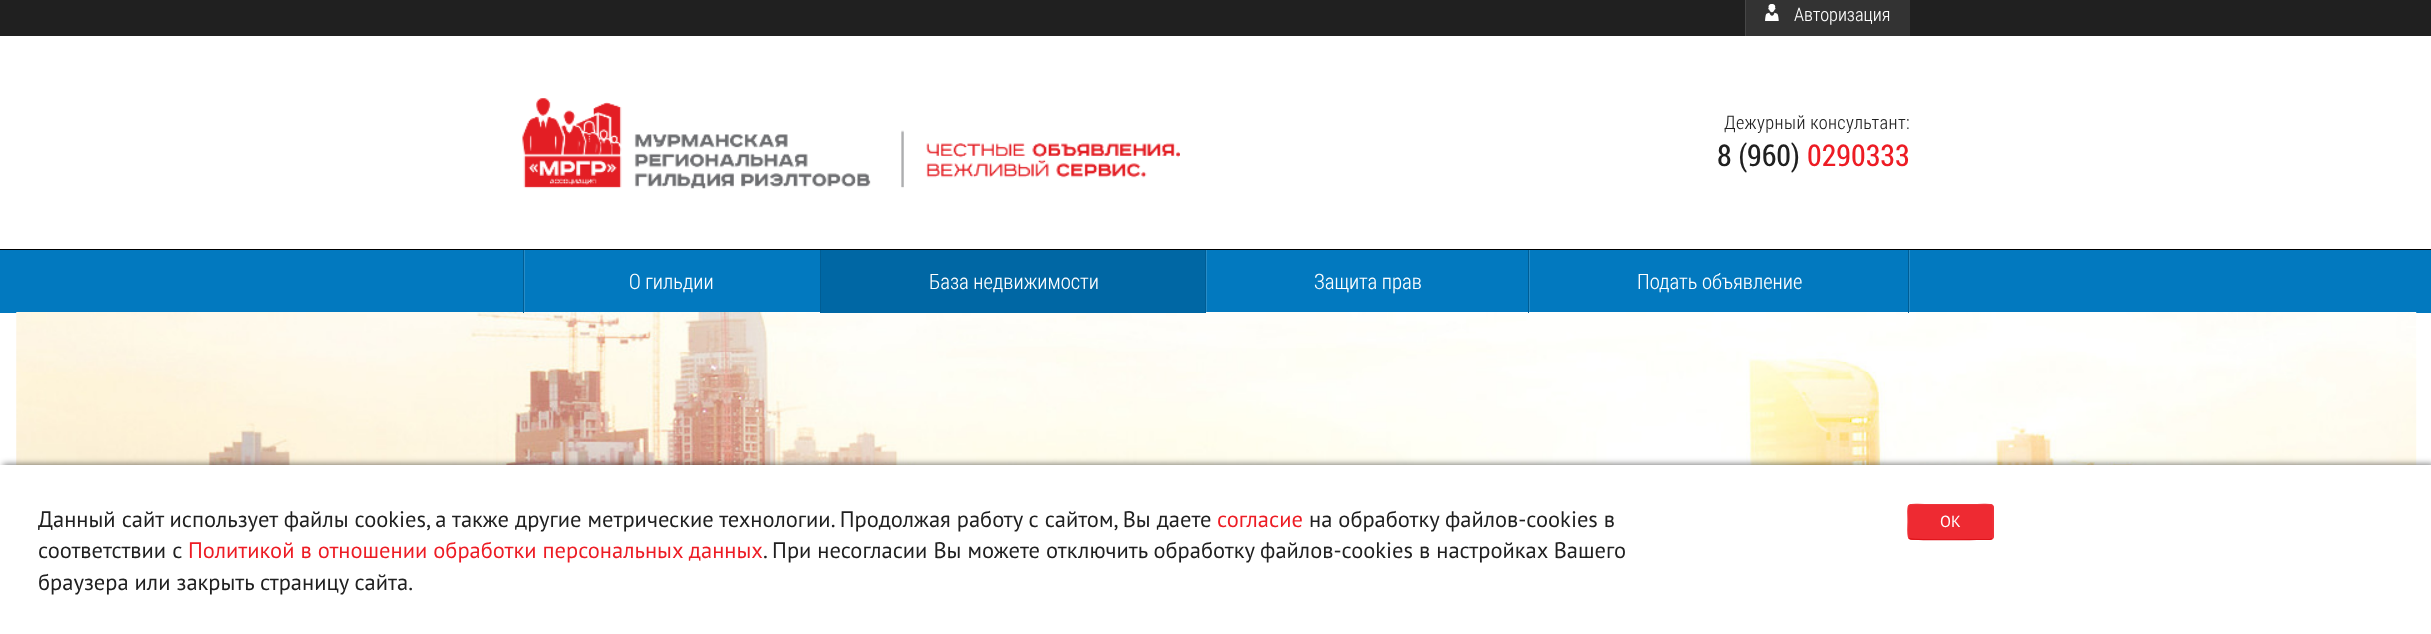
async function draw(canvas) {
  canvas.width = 2431
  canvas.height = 634
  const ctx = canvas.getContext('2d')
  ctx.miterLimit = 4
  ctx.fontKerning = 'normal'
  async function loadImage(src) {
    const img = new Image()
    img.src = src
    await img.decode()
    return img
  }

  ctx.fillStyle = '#fff'
  ctx.fillRect(0, 0, 2431, 634)
  ctx.fillStyle = '#202020'
  ctx.fillRect(0, 0, 2431, 36)
  ctx.fillStyle = '#333'
  ctx.fillRect(1746, 0, 164, 36)
  ctx.fillStyle = '#474747'
  ctx.fillRect(1745, 0, 1, 36)
  ctx.drawImage(await loadImage('image0.png'), 1765, 4, 14, 17)
  ctx.font = '300 18.75px Roboto Condensed'
  ctx.fillStyle = '#fff'
  ctx.fillText('Авторизация', 1794, 21)
  ctx.fillStyle = '#000'
  ctx.fillRect(0, 249, 2431, 1)
  ctx.drawImage(await loadImage('image1.png'), 522, 98, 658, 91)
  ctx.letterSpacing = '0.4px'
  ctx.fillStyle = '#202020'
  ctx.fillText('Дежурный консультант:', 1724, 129)
  ctx.letterSpacing = '0px'
  ctx.font = '30px Roboto Condensed'
  ctx.fillText('8 (960)', 1717, 166)
  ctx.fillStyle = '#ed1c24'
  ctx.fillText('0290333', 1807, 166)
  ctx.fillStyle = '#0279bf'
  ctx.fillRect(0, 250, 2431, 63)
  ctx.drawImage(await loadImage('image2.png'), 16, 312, 2401, 153)
  ctx.fillStyle = '#ffffff26'
  ctx.fillRect(524, 250, 1, 63)
  ctx.fillStyle = '#005d94'
  ctx.fillRect(523, 250, 1, 63)
  ctx.font = '300 21.25px Roboto Condensed'
  ctx.fillStyle = '#fff'
  ctx.fillText('О гильдии', 629, 289)
  ctx.fillStyle = '#005d94'
  ctx.fillRect(820, 250, 1, 63)
  ctx.fillStyle = '#0067a4'
  ctx.fillRect(821, 250, 384, 63)
  ctx.fillStyle = '#fff'
  ctx.fillText('База недвижимости', 929, 289)
  ctx.fillStyle = '#ffffff26'
  ctx.beginPath()
  ctx.moveTo(1206, 312)
  ctx.lineTo(1206, 313)
  ctx.lineTo(1207, 313)
  ctx.lineTo(1207, 250)
  ctx.lineTo(1206, 250)
  ctx.closePath()
  ctx.fill()
  ctx.fillStyle = '#005d94'
  ctx.fillRect(1205, 250, 1, 63)
  ctx.fillStyle = '#fff'
  ctx.fillText('Защита прав', 1314, 289)
  ctx.fillStyle = '#ffffff26'
  ctx.fillRect(1529, 250, 1, 63)
  ctx.fillStyle = '#005d94'
  ctx.fillRect(1528, 250, 1, 63)
  ctx.fillStyle = '#fff'
  ctx.fillText('Подать объявление', 1637, 289)
  ctx.fillStyle = '#ffffff26'
  ctx.fillRect(1909, 250, 1, 63)
  ctx.fillStyle = '#005d94'
  ctx.fillRect(1908, 250, 1, 63)
  ctx.fillStyle = '#00000080'
  ctx.filter = 'blur(3px)'
  ctx.beginPath()
  ctx.rect(3, 464, 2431, 170)
  ctx.fill()
  ctx.filter = 'none'
  ctx.fillStyle = '#fff'
  ctx.fillRect(0, 465, 2431, 169)
  ctx.font = '22.5px PT Sans'
  ctx.fillStyle = '#202020'
  ctx.fillText('Данный сайт использует файлы cookies, а также другие метрические технологии. Продолжая работу с сайтом, Вы даете', 38, 527)
  ctx.fillStyle = '#ed1c24'
  ctx.fillText('согласие', 1217, 527)
  ctx.fillStyle = '#202020'
  ctx.fillText('на обработку файлов-cookies в', 1309, 527)
  ctx.fillText('соответствии с', 38, 558)
  ctx.fillStyle = '#ed1c24'
  ctx.fillText('Политикой в отношении обработки персональных данных', 188, 558)
  ctx.fillStyle = '#202020'
  ctx.fillText('. При несогласии Вы можете отключить обработку файлов-cookies в настройках Вашего', 763, 558)
  ctx.fillText('браузера или закрыть страницу сайта.', 38, 590)
  ctx.fillStyle = '#ee2a32'
  ctx.beginPath()
  ctx.roundRect(1908, 504, 86, 36, 4)
  ctx.fill()
  ctx.beginPath()
  ctx.moveTo(1992, 538.5)
  ctx.lineTo(1990, 539.5)
  ctx.lineTo(1977, 539.5)
  ctx.bezierCurveTo(1969.5, 539.5, 1911.5, 540.5, 1909.5, 538.5)
  ctx.lineTo(1909, 538.5)
  ctx.strokeStyle = '#de1219'
  ctx.lineWidth = 1.2
  ctx.stroke()
  ctx.beginPath()
  ctx.moveTo(1909, 538.5)
  ctx.bezierCurveTo(1907, 536.5, 1908, 525, 1908, 522)
  ctx.bezierCurveTo(1908, 501.5, 1904.5, 504.5, 1924.5, 504.5)
  ctx.lineTo(1977, 504.5)
  ctx.bezierCurveTo(1997, 504.5, 1993, 501.5, 1993, 522)
  ctx.bezierCurveTo(1993, 525, 1994.5, 536.5, 1992, 538.5)
  ctx.strokeStyle = '#ef343b'
  ctx.stroke()
  ctx.font = '16px PT Sans'
  ctx.fillStyle = '#fff'
  ctx.fillText('ОК', 1940, 527)
}

draw(document.querySelector('canvas'))
